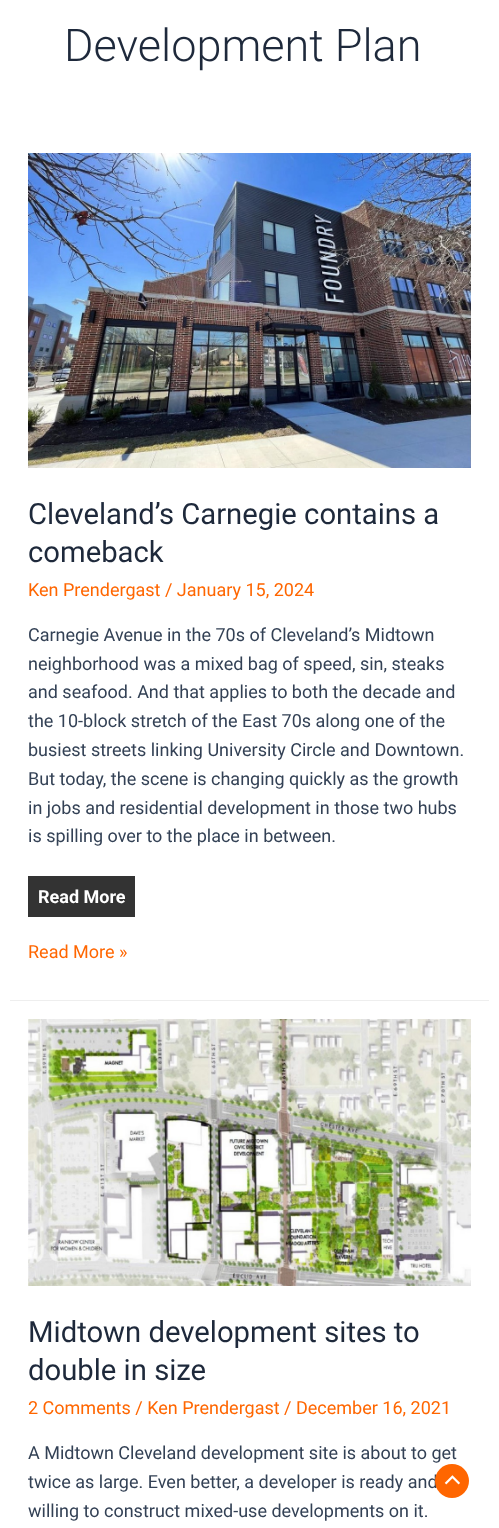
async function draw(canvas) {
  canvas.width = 499
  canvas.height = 1528
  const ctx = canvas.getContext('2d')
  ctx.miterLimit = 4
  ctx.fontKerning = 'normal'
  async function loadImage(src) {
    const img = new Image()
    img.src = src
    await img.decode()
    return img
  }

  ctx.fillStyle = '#fff'
  ctx.fillRect(0, 0, 499, 1528)
  ctx.font = '300 45px Roboto'
  ctx.fillStyle = '#1e293b'
  ctx.fillText('Development Plan', 64, 61)
  ctx.fillStyle = '#eee'
  ctx.fillRect(10, 1000, 479, 1)
  ctx.drawImage(await loadImage('image0.png'), 28, 153, 443, 315)
  ctx.font = '29.25px Roboto'
  ctx.fillStyle = '#1e293b'
  ctx.fillText('Cleveland’s Carnegie contains a', 28, 524)
  ctx.fillText('comeback', 28, 562)
  ctx.font = '18px Roboto'
  ctx.fillStyle = '#f60'
  ctx.fillText('Ken Prendergast / January 15, 2024', 28, 596)
  ctx.fillStyle = '#334155'
  ctx.fillText('Carnegie Avenue in the 70s of Cleveland’s Midtown', 28, 641)
  ctx.fillText('neighborhood was a mixed bag of speed, sin, steaks', 28, 670)
  ctx.fillText('and seafood. And that applies to both the decade and', 28, 698)
  ctx.fillText('the 10-block stretch of the East 70s along one of the', 28, 727)
  ctx.fillText('busiest streets linking University Circle and Downtown.', 28, 756)
  ctx.fillText('But today, the scene is changing quickly as the growth', 28, 785)
  ctx.fillText('in jobs and residential development in those two hubs', 28, 814)
  ctx.fillText('is spilling over to the place in between.', 28, 842)
  ctx.fillStyle = '#333'
  ctx.fillRect(28, 876, 107, 41)
  ctx.font = 'bold 18px Roboto'
  ctx.fillStyle = '#fff'
  ctx.fillText('Read More', 38, 903)
  ctx.font = '18px Roboto'
  ctx.fillStyle = '#f60'
  ctx.fillText('Read More »', 28, 958)
  ctx.drawImage(await loadImage('image1.png'), 28, 1019, 443, 267)
  ctx.font = '29.25px Roboto'
  ctx.fillStyle = '#1e293b'
  ctx.fillText('Midtown development sites to', 28, 1342)
  ctx.fillText('double in size', 28, 1380)
  ctx.font = '18px Roboto'
  ctx.fillStyle = '#f60'
  ctx.fillText('2 Comments / Ken Prendergast / December 16, 2021', 28, 1414)
  ctx.fillStyle = '#334155'
  ctx.fillText('A Midtown Cleveland development site is about to get', 28, 1459)
  ctx.fillText('twice as large. Even better, a developer is ready and', 28, 1488)
  ctx.fillText('willing to construct mixed-use developments on it.', 28, 1517)
  ctx.fillStyle = '#f60'
  ctx.beginPath()
  ctx.arc(452, 1481, 17, 0, 2 * Math.PI)
  ctx.fill()
  ctx.drawImage(await loadImage('image2.png'), 444, 1475, 16, 10)
}

draw(document.querySelector('canvas'))
